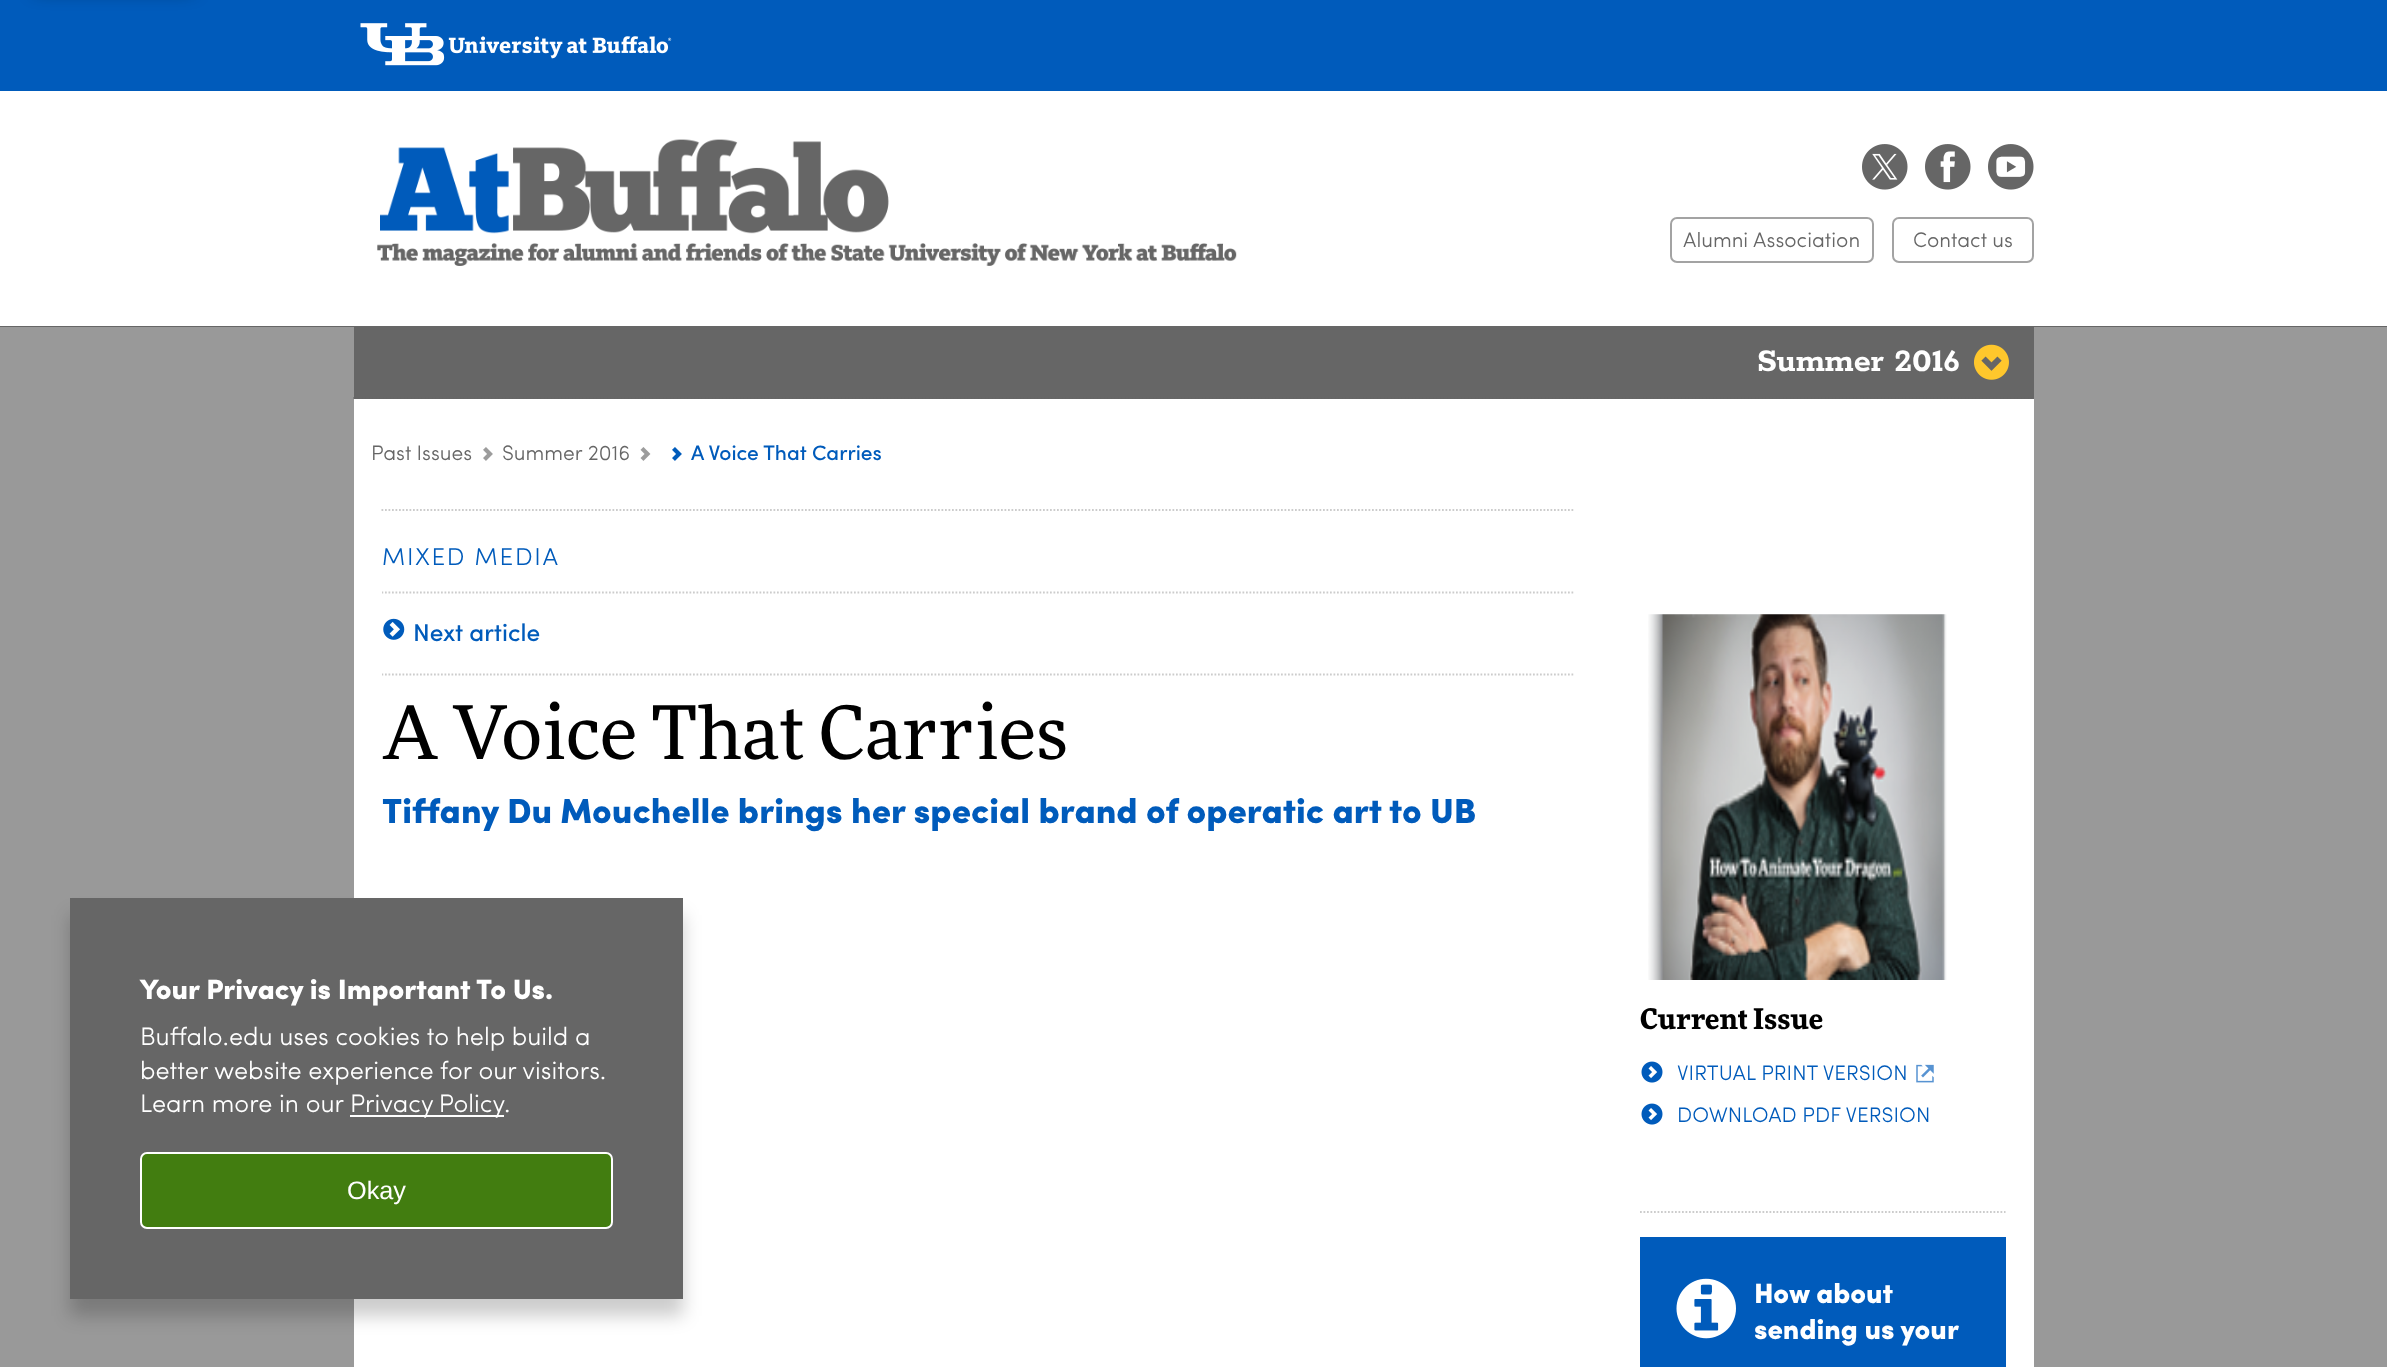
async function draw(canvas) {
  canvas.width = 2387
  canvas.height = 1367
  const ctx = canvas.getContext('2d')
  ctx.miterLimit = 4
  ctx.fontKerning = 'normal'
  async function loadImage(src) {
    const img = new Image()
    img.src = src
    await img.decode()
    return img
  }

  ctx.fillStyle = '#999'
  ctx.fillRect(0, 0, 2387, 1367)
  ctx.fillStyle = '#005bbb'
  ctx.fillRect(0, 0, 2387, 91)
  ctx.fillStyle = '#00000080'
  ctx.filter = 'blur(9px)'
  ctx.beginPath()
  ctx.rect(35, -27, 158, 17)
  ctx.fill()
  ctx.filter = 'none'
  ctx.fillStyle = '#fff'
  ctx.fillRect(354, 399, 1680, 968)
  ctx.fillStyle = '#00000033'
  ctx.filter = 'blur(9px)'
  ctx.beginPath()
  ctx.rect(70, 915, 613, 401)
  ctx.fill()
  ctx.filter = 'none'
  ctx.fillStyle = '#666'
  ctx.fillRect(70, 898, 613, 401)
  ctx.font = '28px "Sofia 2"'
  ctx.fillStyle = '#fff'
  ctx.fillText('Your Privacy is Important To Us.', 140, 999)
  ctx.font = '25.25px Sofia'
  ctx.fillText('Buffalo.edu uses cookies to help build a', 140, 1045)
  ctx.fillText('better website experience for our visitors.', 140, 1079)
  ctx.fillText('Learn more in our', 140, 1112)
  ctx.fillRect(350, 1115, 154, 2)
  ctx.wordSpacing = '-1px'
  ctx.fillText('Privacy Policy', 350, 1112)
  ctx.wordSpacing = '0px'
  ctx.fillText('.', 504, 1112)
  ctx.fillStyle = '#427d10'
  ctx.beginPath()
  ctx.roundRect(141, 1153, 471, 75, 6)
  ctx.fill()
  ctx.strokeStyle = '#fff'
  ctx.lineWidth = 2
  ctx.stroke()
  ctx.font = '25.25px Liberation Sans'
  ctx.fillStyle = '#fff'
  ctx.fillText('Okay', 347, 1199)
  ctx.drawImage(await loadImage('image0.png'), 360, 23, 85, 43)
  ctx.drawImage(await loadImage('image1.png'), 448, 36, 224, 23)
  ctx.fillStyle = '#666'
  ctx.fillRect(0, 326, 2387, 1)
  ctx.fillStyle = '#fff'
  ctx.fillRect(0, 91, 2387, 235)
  ctx.drawImage(await loadImage('image2.png'), 377, 139, 860, 127)
  ctx.drawImage(await loadImage('image3.png'), 1862, 144, 46, 46)
  ctx.drawImage(await loadImage('image4.png'), 1925, 144, 46, 46)
  ctx.drawImage(await loadImage('image5.png'), 1988, 144, 46, 46)
  ctx.beginPath()
  ctx.roundRect(1671, 218, 202, 44, 6)
  ctx.strokeStyle = '#a3a3a3'
  ctx.stroke()
  ctx.font = '21px Sofia'
  ctx.fillStyle = '#666'
  ctx.fillText('Alumni Association', 1683, 247)
  ctx.beginPath()
  ctx.roundRect(1893, 218, 140, 44, 6)
  ctx.stroke()
  ctx.fillText('Contact us', 1913, 247)
  ctx.fillRect(354, 327, 1680, 72)
  ctx.beginPath()
  ctx.moveTo(353.5, 398)
  ctx.lineTo(2033.5, 398)
  ctx.strokeStyle = '#666'
  ctx.lineWidth = 1.8
  ctx.setLineDash([1.75, 1.75])
  ctx.stroke()
  ctx.font = 'bold 35px Rokkitt'
  ctx.fillStyle = '#fff'
  ctx.fillText('Summer 2016', 1757, 371)
  ctx.drawImage(await loadImage('image6.png'), 1974, 344, 35, 36)
  ctx.font = '21px Sofia'
  ctx.fillStyle = '#666'
  ctx.fillText('Past Issues', 371, 460)
  ctx.drawImage(await loadImage('image7.png'), 483, 447, 10, 14)
  ctx.fillText('Summer 2016', 502, 460)
  ctx.drawImage(await loadImage('image8.png'), 640, 447, 11, 14)
  ctx.drawImage(await loadImage('image9.png'), 672, 447, 10, 14)
  ctx.font = '500 21px Sofia'
  ctx.fillStyle = '#005bbb'
  ctx.fillText('A Voice That Carries', 691, 460)
  ctx.beginPath()
  ctx.moveTo(381.5, 510)
  ctx.lineTo(1575, 510)
  ctx.strokeStyle = '#ccc'
  ctx.stroke()
  ctx.letterSpacing = '1.75px'
  ctx.font = '24.5px Sofia'
  ctx.fillText('MIXED MEDIA', 382, 565)
  ctx.save()
  ctx.beginPath()
  ctx.rect(382, 583, 1193, 17)
  ctx.clip()
  ctx.beginPath()
  ctx.moveTo(381.5, 592.5)
  ctx.lineTo(1575, 592.5)
  ctx.stroke()
  ctx.restore()
  ctx.drawImage(await loadImage('image10.png'), 383, 618, 22, 22)
  ctx.letterSpacing = '0px'
  ctx.font = '500 24.5px Sofia'
  ctx.fillText('Next article', 413, 641)
  ctx.save()
  ctx.beginPath()
  ctx.rect(382, 665, 1193, 18)
  ctx.clip()
  ctx.beginPath()
  ctx.moveTo(381.5, 674.5)
  ctx.lineTo(1575, 674.5)
  ctx.stroke()
  ctx.restore()
  ctx.font = '73.5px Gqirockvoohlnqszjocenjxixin'
  ctx.fillStyle = '#000'
  ctx.fillText('A Voice That Carries', 382, 759)
  ctx.font = '35px "Sofia 2"'
  ctx.fillStyle = '#005bbb'
  ctx.fillText('Tiffany Du Mouchelle brings her special brand of operatic art to UB', 382, 823)
  ctx.drawImage(await loadImage('image11.png'), 1648, 614, 299, 366)
  ctx.font = 'bold 28px "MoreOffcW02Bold"'
  ctx.fillStyle = '#000'
  ctx.fillText('Current Issue', 1640, 1029)
  ctx.drawImage(await loadImage('image12.png'), 1641, 1061, 22, 22)
  ctx.font = '21px Sofia'
  ctx.fillStyle = '#005bbb'
  ctx.fillText('VIRTUAL PRINT VERSION', 1677, 1080)
  ctx.drawImage(await loadImage('image13.png'), 1916, 1064, 18, 19)
  ctx.drawImage(await loadImage('image12.png'), 1641, 1103, 22, 22)
  ctx.fillText('DOWNLOAD PDF VERSION', 1677, 1122)
  ctx.beginPath()
  ctx.moveTo(1640, 1212)
  ctx.lineTo(2005.5, 1212)
  ctx.stroke()
  ctx.fillRect(1640, 1237, 366, 130)
  ctx.drawImage(await loadImage('image14.png'), 1676, 1278, 60, 61)
  ctx.font = '28px "Sofia 2"'
  ctx.fillStyle = '#fff'
  ctx.fillText('How about', 1754, 1303)
  ctx.fillText('sending us your', 1754, 1339)
}

draw(document.querySelector('canvas'))
